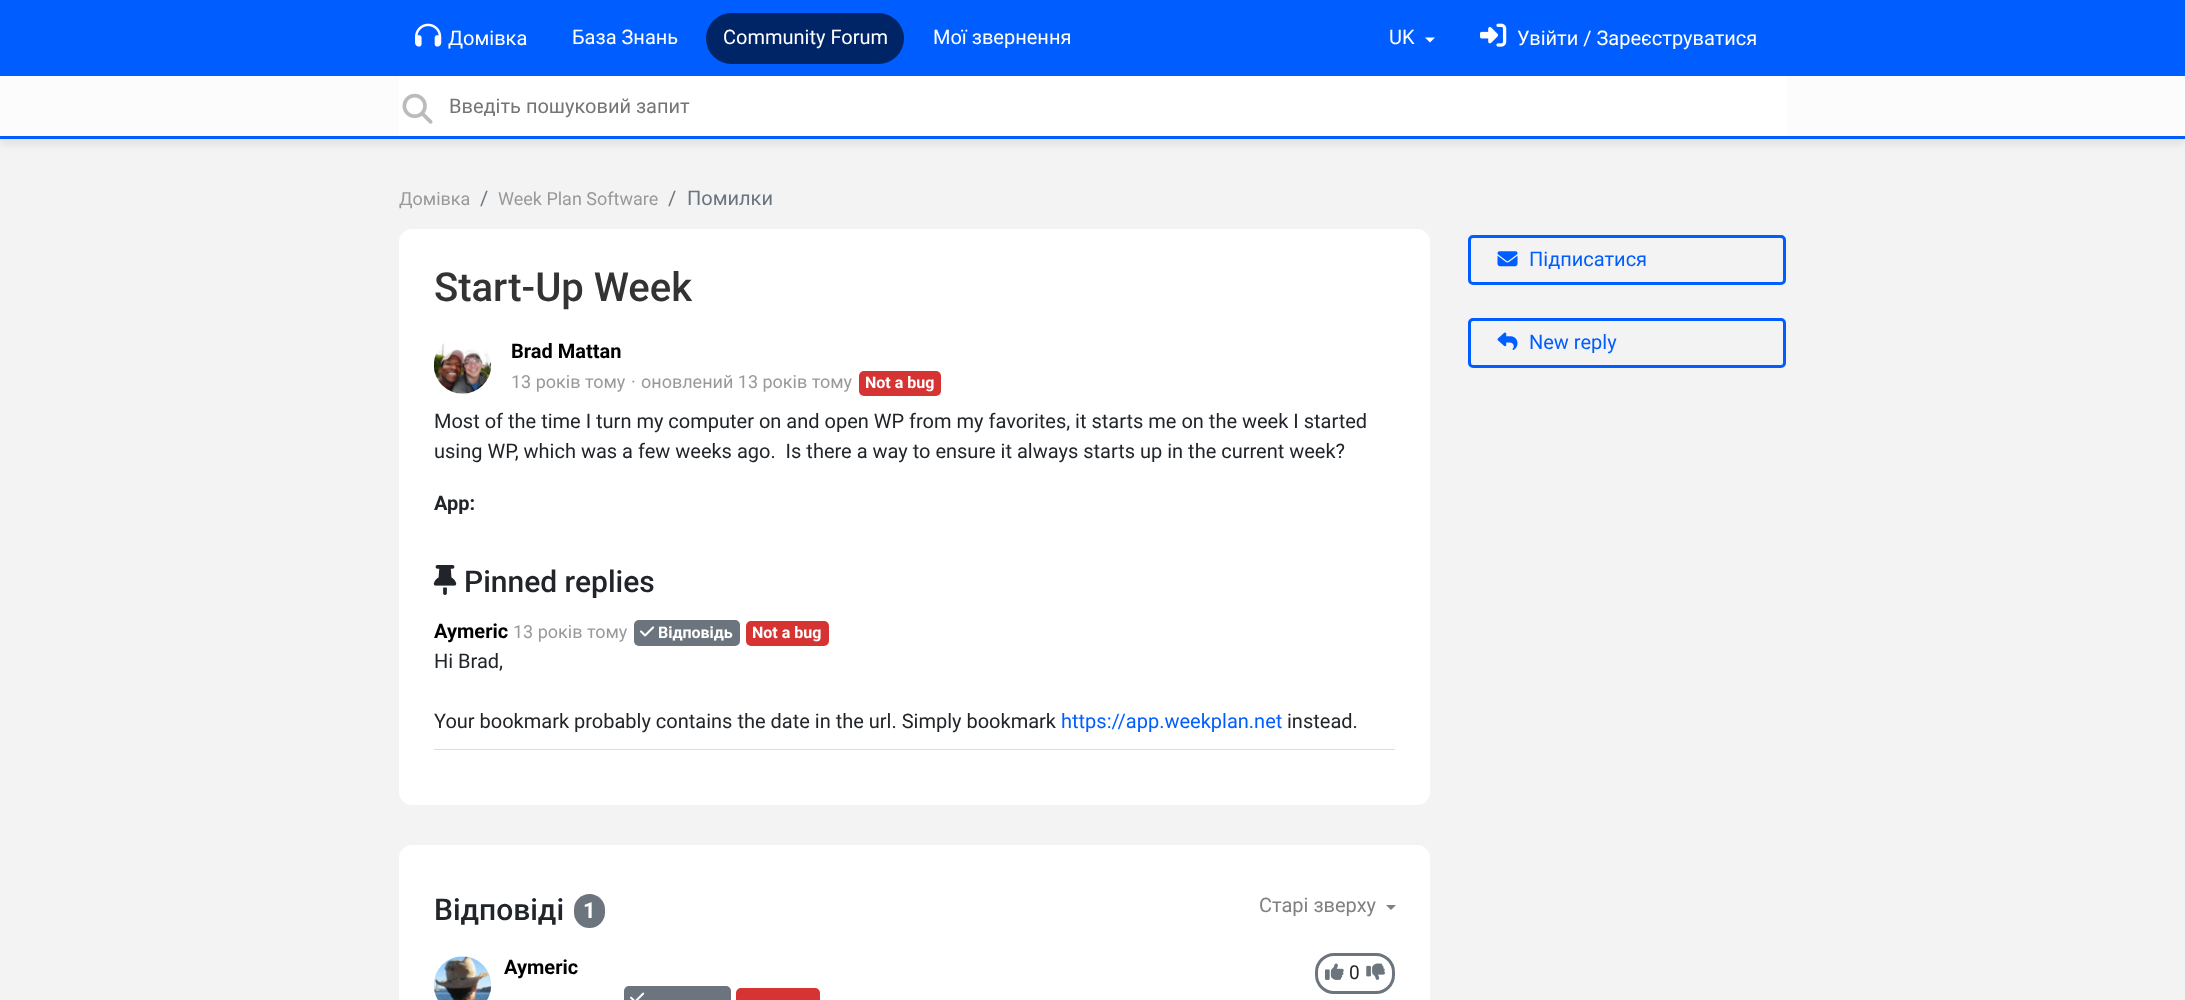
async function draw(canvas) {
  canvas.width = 2185
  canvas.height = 1000
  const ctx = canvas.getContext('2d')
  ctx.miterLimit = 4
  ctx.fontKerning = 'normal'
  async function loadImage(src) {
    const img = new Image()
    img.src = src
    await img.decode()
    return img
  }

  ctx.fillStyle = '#f3f3f3'
  ctx.fillRect(0, 0, 2185, 1000)
  ctx.fillStyle = '#005dff'
  ctx.fillRect(0, 0, 2185, 76)
  ctx.drawImage(await loadImage('image0.png'), 415, 23, 27, 24)
  ctx.font = '20px Roboto'
  ctx.fillStyle = '#fff'
  ctx.fillText('Домівка', 448, 45)
  ctx.fillText('База Знань', 572, 44)
  ctx.fillStyle = '#002566'
  ctx.beginPath()
  ctx.roundRect(706, 13, 198, 51, 25.5)
  ctx.fill()
  ctx.fillStyle = '#fff'
  ctx.fillText('Community Forum', 723, 44)
  ctx.fillText('Мої звернення', 933, 44)
  ctx.fillText('UK', 1389, 44)
  ctx.beginPath()
  ctx.moveTo(1425, 37.5)
  ctx.lineTo(1435, 37.5)
  ctx.lineTo(1430, 42.5)
  ctx.closePath()
  ctx.fill()
  ctx.drawImage(await loadImage('image1.png'), 1480, 23, 27, 24)
  ctx.fillText('Увійти / Зареєструватися', 1517, 45)
  ctx.fillStyle = '#6464641a'
  ctx.filter = 'blur(3px)'
  ctx.beginPath()
  ctx.rect(0, 83, 2185, 62)
  ctx.fill()
  ctx.filter = 'none'
  ctx.fillStyle = '#fcfcfc'
  ctx.fillRect(0, 76, 2185, 60)
  ctx.fillStyle = '#005dff'
  ctx.fillRect(0, 136, 2185, 3)
  ctx.fillStyle = '#fff'
  ctx.fillRect(399, 76, 1387, 60)
  ctx.drawImage(await loadImage('image2.png'), 402, 93, 31, 31)
  ctx.fillStyle = '#757575'
  ctx.fillText('Введіть пошуковий запит', 449, 113)
  ctx.font = '18px Roboto'
  ctx.fillStyle = '#999'
  ctx.fillText('Домівка', 399, 205)
  ctx.font = '20px Roboto'
  ctx.fillStyle = '#6c757d'
  ctx.fillText('/', 480, 205)
  ctx.font = '18px Roboto'
  ctx.fillStyle = '#999'
  ctx.fillText('Week Plan Software', 498, 205)
  ctx.font = '20px Roboto'
  ctx.fillStyle = '#6c757d'
  ctx.fillText('/', 668, 205)
  ctx.fillText('Помилки', 687, 205)
  ctx.fillStyle = '#fff'
  ctx.beginPath()
  ctx.roundRect(399, 229, 1031, 576, 13)
  ctx.fill()
  ctx.font = '500 40px Roboto'
  ctx.fillStyle = '#333'
  ctx.fillText('Start-Up Week', 434, 301)
  ctx.drawImage(await loadImage('image3.png'), 433, 343, 59, 51)
  ctx.font = 'bold 20px Roboto'
  ctx.fillStyle = '#000'
  ctx.fillText('Brad Mattan', 511, 358)
  ctx.font = '18px Roboto'
  ctx.fillStyle = '#999'
  ctx.fillText('13 років тому', 511, 388)
  ctx.fillText('·', 631, 388)
  ctx.fillText('оновлений 13 років тому', 641, 388)
  ctx.fillStyle = '#d63333'
  ctx.beginPath()
  ctx.roundRect(859, 371, 82, 25, 5)
  ctx.fill()
  ctx.font = 'bold 16px Roboto'
  ctx.fillStyle = '#fff'
  ctx.fillText('Not a bug', 865, 388)
  ctx.font = '20px Roboto'
  ctx.fillStyle = '#212529'
  ctx.fillText('Most of the time I turn my computer on and open WP from my favorites, it starts me on the week I started', 434, 428)
  ctx.fillText('using WP, which was a few weeks ago.  Is there a way to ensure it always starts up in the current week?', 434, 458)
  ctx.font = 'bold 20px Roboto'
  ctx.fillText('App:', 434, 510)
  ctx.drawImage(await loadImage('image4.png'), 433, 565, 24, 30)
  ctx.font = '500 30px Roboto'
  ctx.fillText('Pinned replies', 464, 592)
  ctx.fillStyle = '#ddd'
  ctx.fillRect(434, 749, 961, 1)
  ctx.font = 'bold 20px Roboto'
  ctx.fillStyle = '#000'
  ctx.fillText('Aymeric', 434, 638)
  ctx.font = '18px Roboto'
  ctx.fillStyle = '#999'
  ctx.fillText('13 років тому', 513, 638)
  ctx.fillStyle = '#6c757d'
  ctx.beginPath()
  ctx.roundRect(634, 620, 106, 26, 5)
  ctx.fill()
  ctx.drawImage(await loadImage('image5.png'), 640, 626, 15, 11)
  ctx.font = 'bold 16px Roboto'
  ctx.fillStyle = '#fff'
  ctx.fillText('Відповідь', 658, 638)
  ctx.fillStyle = '#d63333'
  ctx.beginPath()
  ctx.roundRect(746, 621, 83, 25, 5)
  ctx.fill()
  ctx.fillStyle = '#fff'
  ctx.fillText('Not a bug', 752, 638)
  ctx.font = '20px Roboto'
  ctx.fillStyle = '#212529'
  ctx.fillText('Hi Brad,', 434, 668)
  ctx.fillText('Your bookmark probably contains the date in the url. Simply bookmark', 434, 728)
  ctx.fillStyle = '#005dff'
  ctx.fillText('https://app.weekplan.net', 1061, 728)
  ctx.fillStyle = '#212529'
  ctx.fillText('instead.', 1287, 728)
  ctx.beginPath()
  ctx.roundRect(1469.5, 236.5, 315, 47, 3.5)
  ctx.strokeStyle = '#005dff'
  ctx.lineWidth = 3
  ctx.stroke()
  ctx.drawImage(await loadImage('image6.png'), 1497, 251, 21, 16)
  ctx.fillStyle = '#005dff'
  ctx.fillText('Підписатися', 1529, 266)
  ctx.beginPath()
  ctx.roundRect(1469.5, 319.5, 315, 47, 3.5)
  ctx.stroke()
  ctx.drawImage(await loadImage('image7.png'), 1497, 332, 21, 18)
  ctx.fillText('New reply', 1529, 349)
  ctx.fillStyle = '#fff'
  ctx.beginPath()
  ctx.roundRect(399, 845, 1031, 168, 13)
  ctx.fill()
  ctx.font = '500 30px Roboto'
  ctx.fillStyle = '#212529'
  ctx.fillText('Відповіді', 434, 920)
  ctx.fillStyle = '#6c757d'
  ctx.beginPath()
  ctx.roundRect(574, 894, 31, 34, 15.5)
  ctx.fill()
  ctx.font = 'bold 22px Roboto'
  ctx.fillStyle = '#fff'
  ctx.fillText('1', 583, 918)
  ctx.font = '20px Roboto'
  ctx.fillStyle = '#808080'
  ctx.fillText('Старі зверху', 1259, 912)
  ctx.beginPath()
  ctx.moveTo(1386, 905)
  ctx.lineTo(1396, 905)
  ctx.lineTo(1391, 910)
  ctx.closePath()
  ctx.fill()
  ctx.drawImage(await loadImage('image8.png'), 434, 956, 57, 44)
  ctx.font = 'bold 20px Roboto'
  ctx.fillStyle = '#000'
  ctx.fillText('Aymeric', 504, 974)
  ctx.fillStyle = '#6c757d'
  ctx.beginPath()
  ctx.roundRect(624, 986, 107, 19, 5)
  ctx.fill()
  ctx.drawImage(await loadImage('image9.png'), 630, 992, 15, 8)
  ctx.fillStyle = '#d63333'
  ctx.beginPath()
  ctx.roundRect(736, 988, 84, 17, 5)
  ctx.fill()
  ctx.beginPath()
  ctx.roundRect(1316.5, 954.5, 77, 38, 17.5)
  ctx.strokeStyle = '#6c757d'
  ctx.stroke()
  ctx.drawImage(await loadImage('image10.png'), 1325, 963, 19, 17)
  ctx.font = '19px Roboto'
  ctx.fillStyle = '#212529'
  ctx.fillText('0', 1349, 979)
  ctx.drawImage(await loadImage('image11.png'), 1366, 963, 19, 17)
}

draw(document.querySelector('canvas'))
